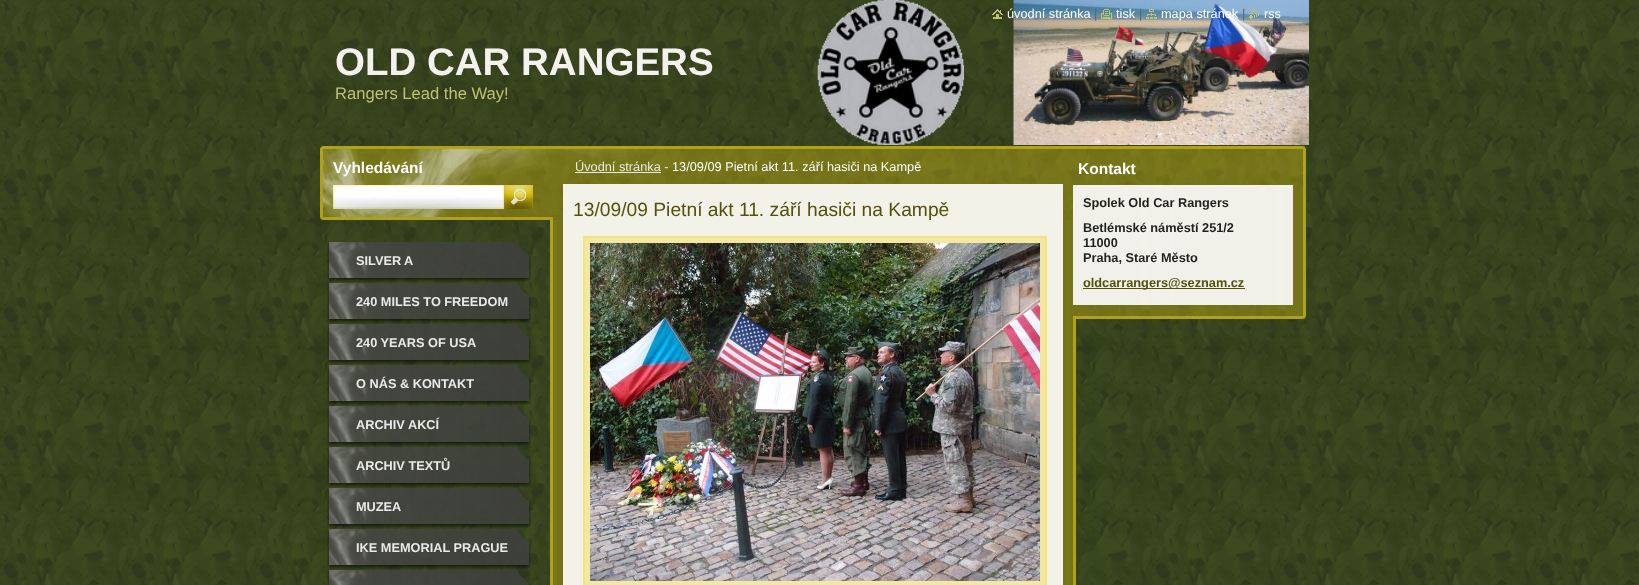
async function draw(canvas) {
  canvas.width = 1639
  canvas.height = 585
  const ctx = canvas.getContext('2d')
  ctx.miterLimit = 4
  ctx.fontKerning = 'normal'
  async function loadImage(src) {
    const img = new Image()
    img.src = src
    await img.decode()
    return img
  }

  ctx.fillStyle = '#fff'
  ctx.fillRect(0, 0, 1639, 585)
  ctx.drawImage(await loadImage('image0.png'), 0, 0, 1639, 585)
  ctx.drawImage(await loadImage('image5.png'), 817, 0, 492, 145)
  ctx.drawImage(await loadImage('image1.png'), 992, 9, 11, 10)
  ctx.font = '12.75px Liberation Sans'
  ctx.fillText('úvodní stránka', 1007, 18)
  ctx.fillStyle = '#646464'
  ctx.fillText('|', 1094, 18)
  ctx.drawImage(await loadImage('image2.png'), 1101, 9, 11, 10)
  ctx.fillStyle = '#fff'
  ctx.fillText('tisk', 1116, 18)
  ctx.fillStyle = '#646464'
  ctx.fillText('|', 1139, 18)
  ctx.drawImage(await loadImage('image3.png'), 1146, 9, 11, 10)
  ctx.fillStyle = '#fff'
  ctx.fillText('mapa stránek', 1161, 18)
  ctx.fillStyle = '#646464'
  ctx.fillText('|', 1242, 18)
  ctx.drawImage(await loadImage('image4.png'), 1249, 9, 10, 10)
  ctx.fillStyle = '#fff'
  ctx.fillText('rss', 1264, 18)
  ctx.font = 'bold 38.5px Liberation Sans'
  ctx.fillStyle = '#f3f2ef'
  ctx.fillText('OLD CAR RANGERS', 335, 75)
  ctx.font = '16.6px Liberation Sans'
  ctx.fillStyle = '#bfc273'
  ctx.fillText('Rangers Lead the Way!', 335, 99)
  ctx.drawImage(await loadImage('image6.png'), 320, 146, 986, 74)
  ctx.font = 'bold 15.5px Liberation Sans'
  ctx.fillStyle = '#fff'
  ctx.fillText('Vyhledávání', 333, 173)
  ctx.drawImage(await loadImage('image7.png'), 333, 185, 171, 24)
  ctx.drawImage(await loadImage('image8.png'), 504, 185, 29, 24)
  ctx.drawImage(await loadImage('image9.png'), 550, 220, 526, 365)
  ctx.drawImage(await loadImage('image10.png'), 550, 146, 526, 74)
  ctx.font = '12.75px Liberation Sans'
  ctx.fillStyle = '#e9e9e9'
  ctx.fillText('Úvodní stránka -', 575, 171)
  ctx.fillRect(575, 172, 86, 1)
  ctx.fillStyle = '#fff'
  ctx.fillText('13/09/09 Pietní akt 11. září hasiči na Kampě', 672, 171)
  ctx.fillStyle = '#f2f2e9'
  ctx.fillRect(563, 184, 500, 401)
  ctx.font = '19.25px Liberation Sans'
  ctx.fillStyle = '#56500d'
  ctx.fillText('13/09/09 Pietní akt 11. září hasiči na Kampě', 573, 216)
  ctx.fillStyle = '#f2e8a1'
  ctx.beginPath()
  ctx.rect(584, 237, 462, 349)
  ctx.fill()
  ctx.strokeStyle = '#f3e47c'
  ctx.lineWidth = 2
  ctx.stroke()
  ctx.drawImage(await loadImage('image11.png'), 590, 243, 450, 338)
  ctx.font = 'bold 15.5px Liberation Sans'
  ctx.fillStyle = '#fff'
  ctx.fillText('Kontakt', 1078, 174)
  ctx.drawImage(await loadImage('image12.png'), 1073, 185, 233, 120)
  ctx.font = 'bold 12.75px Liberation Sans'
  ctx.fillStyle = '#1f221c'
  ctx.fillText('Spolek Old Car Rangers', 1083, 207)
  ctx.fillText('Betlémské náměstí 251/2', 1083, 232)
  ctx.fillText('11000', 1083, 247)
  ctx.fillText('Praha, Staré Město', 1083, 262)
  ctx.fillStyle = '#56500d'
  ctx.fillRect(1083, 288, 162, 1)
  ctx.fillText('oldcarrangers@seznam.cz', 1083, 287)
  ctx.drawImage(await loadImage('image13.png'), 1073, 305, 233, 14)
  ctx.drawImage(await loadImage('image14.png'), 327, 242, 204, 40)
  ctx.fillStyle = '#e9e9e9'
  ctx.fillText('SILVER', 356, 265)
  ctx.fillText('A', 404, 265)
  ctx.drawImage(await loadImage('image15.png'), 327, 283, 204, 40)
  ctx.fillText('240 MILES TO FREEDOM', 356, 306)
  ctx.drawImage(await loadImage('image16.png'), 327, 324, 204, 40)
  ctx.fillText('240 YEARS OF USA', 356, 347)
  ctx.drawImage(await loadImage('image17.png'), 327, 365, 204, 40)
  ctx.fillText('O NÁS & KONTAKT', 356, 388)
  ctx.drawImage(await loadImage('image18.png'), 327, 406, 204, 40)
  ctx.fillText('ARCHIV AKCÍ', 356, 429)
  ctx.drawImage(await loadImage('image19.png'), 327, 447, 204, 40)
  ctx.fillText('ARCHIV TEXTŮ', 356, 470)
  ctx.drawImage(await loadImage('image20.png'), 327, 488, 204, 40)
  ctx.fillText('MUZEA', 356, 511)
  ctx.drawImage(await loadImage('image21.png'), 327, 529, 204, 40)
  ctx.fillText('IKE MEMORIAL PRAGUE', 356, 552)
  ctx.drawImage(await loadImage('image22.png'), 327, 570, 203, 15)
}

draw(document.querySelector('canvas'))
